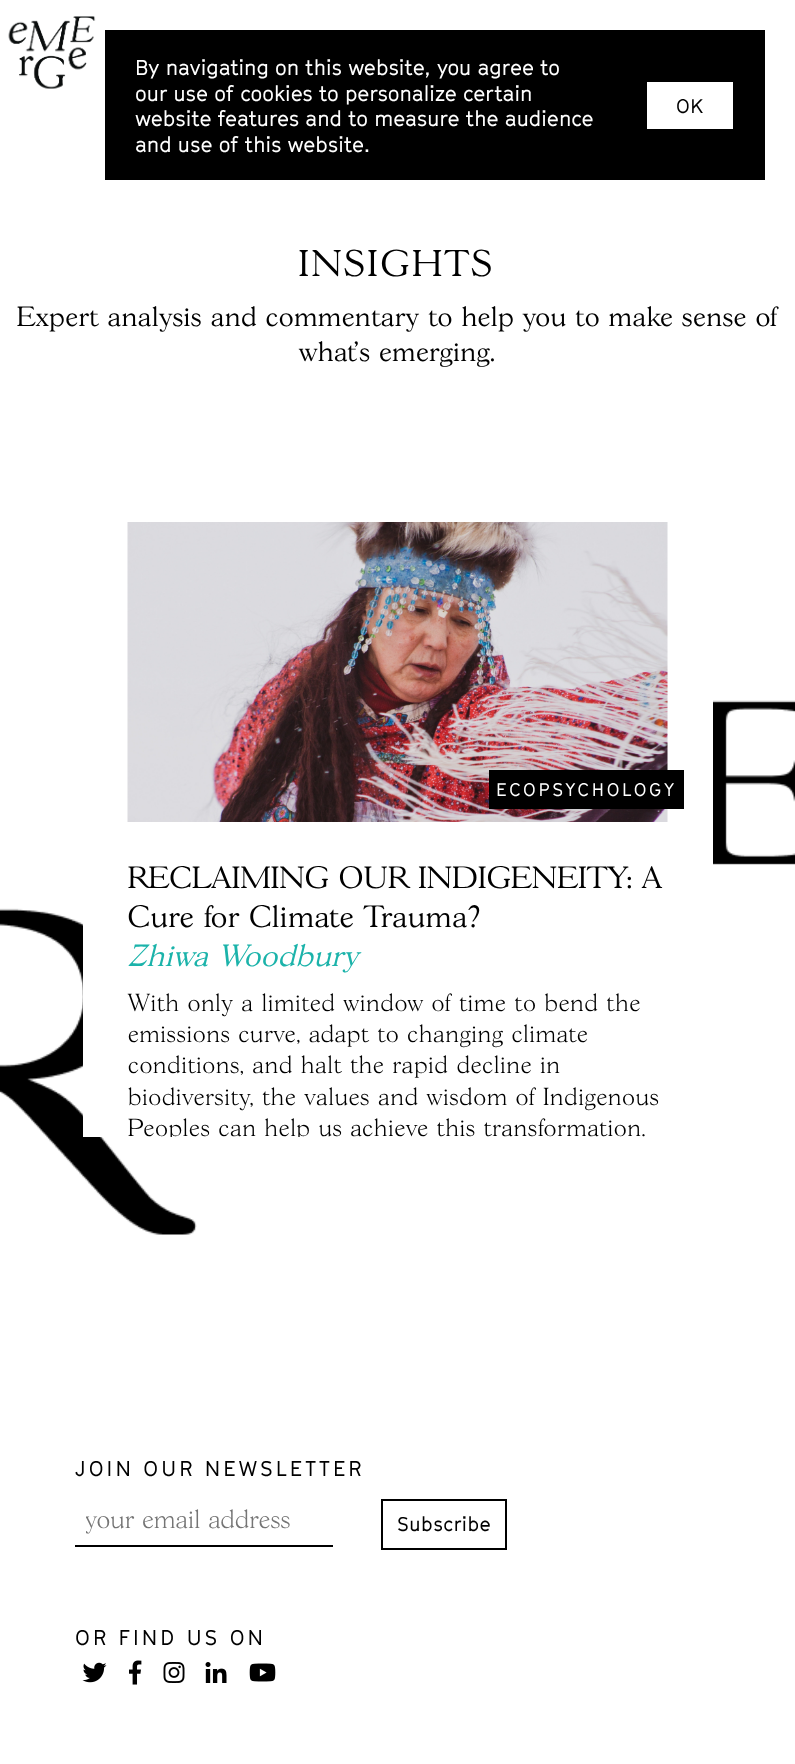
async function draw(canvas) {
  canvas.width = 795
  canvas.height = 1764
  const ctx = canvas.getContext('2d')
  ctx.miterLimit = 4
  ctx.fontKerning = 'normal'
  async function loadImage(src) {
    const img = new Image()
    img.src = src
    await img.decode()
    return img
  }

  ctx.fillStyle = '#fff'
  ctx.fillRect(0, 0, 795, 1764)
  ctx.drawImage(await loadImage('image0.png'), 0, 700, 795, 689)
  ctx.drawImage(await loadImage('image1.png'), 8, 16, 88, 73)
  ctx.fillStyle = '#000'
  ctx.fillRect(105, 30, 660, 150)
  ctx.font = '21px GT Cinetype'
  ctx.fillStyle = '#fff'
  ctx.fillText('By navigating on this website, you agree to', 135, 75)
  ctx.fillText('our use of cookies to personalize certain', 135, 101)
  ctx.fillText('website features and to measure the audience', 135, 126)
  ctx.fillText('and use of this website.', 135, 152)
  ctx.fillRect(647, 82, 86, 47)
  ctx.letterSpacing = '0.5px'
  ctx.font = '19.5px GT Cinetype'
  ctx.fillStyle = '#000'
  ctx.fillText('OK', 676, 113)
  ctx.letterSpacing = '3.5px'
  ctx.font = '300 36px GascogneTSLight'
  ctx.fillText('INSIGHTS', 299, 276)
  ctx.letterSpacing = '0.8px'
  ctx.font = '300 27px GascogneTSLight'
  ctx.fillText('Expert analysis and commentary to help you to make sense of', 17, 326)
  ctx.fillText('what’s emerging.', 299, 361)
  ctx.fillStyle = '#fff'
  ctx.fillRect(83, 700, 630, 437)
  ctx.drawImage(await loadImage('image2.png'), 127, 522, 541, 300)
  ctx.fillStyle = '#000'
  ctx.fillRect(491, 772, 191, 35)
  ctx.strokeStyle = '#000'
  ctx.lineWidth = 2
  ctx.strokeRect(490, 771, 193, 37)
  ctx.letterSpacing = '2.75px'
  ctx.font = '18px GT Cinetype'
  ctx.fillStyle = '#fff'
  ctx.fillText('ECOPSYCHOLOGY', 496, 796)
  ctx.letterSpacing = '0.9px'
  ctx.font = '300 30px GascogneTSLight'
  ctx.fillStyle = '#000'
  ctx.fillText('RECLAIMING OUR INDIGENEITY: A', 128, 888)
  ctx.fillText('Cure for Climate Trauma?', 128, 927)
  ctx.font = 'italic 300 30px GascogneTSLight'
  ctx.fillStyle = '#1bb3aa'
  ctx.fillText('Zhiwa Woodbury', 128, 966)
  ctx.letterSpacing = '0.95px'
  ctx.font = '24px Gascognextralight'
  ctx.fillStyle = '#000'
  ctx.fillText('With only a limited window of time to bend the', 128, 1011)
  ctx.fillText('emissions curve, adapt to changing climate', 128, 1042)
  ctx.fillText('conditions, and halt the rapid decline in', 128, 1073)
  ctx.fillText('biodiversity, the values and wisdom of Indigenous', 128, 1105)
  ctx.save()
  ctx.beginPath()
  ctx.rect(128, 990, 540, 147)
  ctx.clip()
  ctx.fillText('Peoples can help us achieve this transformation.', 128, 1136)
  ctx.restore()
  ctx.letterSpacing = '3.1px'
  ctx.font = '21px GT Cinetype'
  ctx.fillText('JOIN OUR NEWSLETTER', 75, 1476)
  ctx.fillRect(75, 1545, 258, 2)
  ctx.save()
  ctx.beginPath()
  ctx.rect(86, 1506, 237, 30)
  ctx.clip()
  ctx.letterSpacing = '0.5px'
  ctx.font = '25.5px Gascognextralight'
  ctx.fillStyle = '#757575'
  ctx.fillText('your email address', 85, 1528)
  ctx.restore()
  ctx.strokeRect(382, 1500, 124, 49)
  ctx.letterSpacing = '0.5px'
  ctx.font = '19.5px GT Cinetype'
  ctx.fillText('Subscribe', 397, 1531)
  ctx.letterSpacing = '3.1px'
  ctx.font = '21px GT Cinetype'
  ctx.fillText('OR FIND US ON', 75, 1645)
  ctx.drawImage(await loadImage('image3.png'), 82, 1662, 25, 21)
  ctx.drawImage(await loadImage('image4.png'), 129, 1660, 13, 25)
  ctx.drawImage(await loadImage('image5.png'), 163, 1662, 22, 21)
  ctx.drawImage(await loadImage('image6.png'), 205, 1662, 22, 21)
  ctx.drawImage(await loadImage('image7.png'), 249, 1663, 27, 19)
}

draw(document.querySelector('canvas'))
